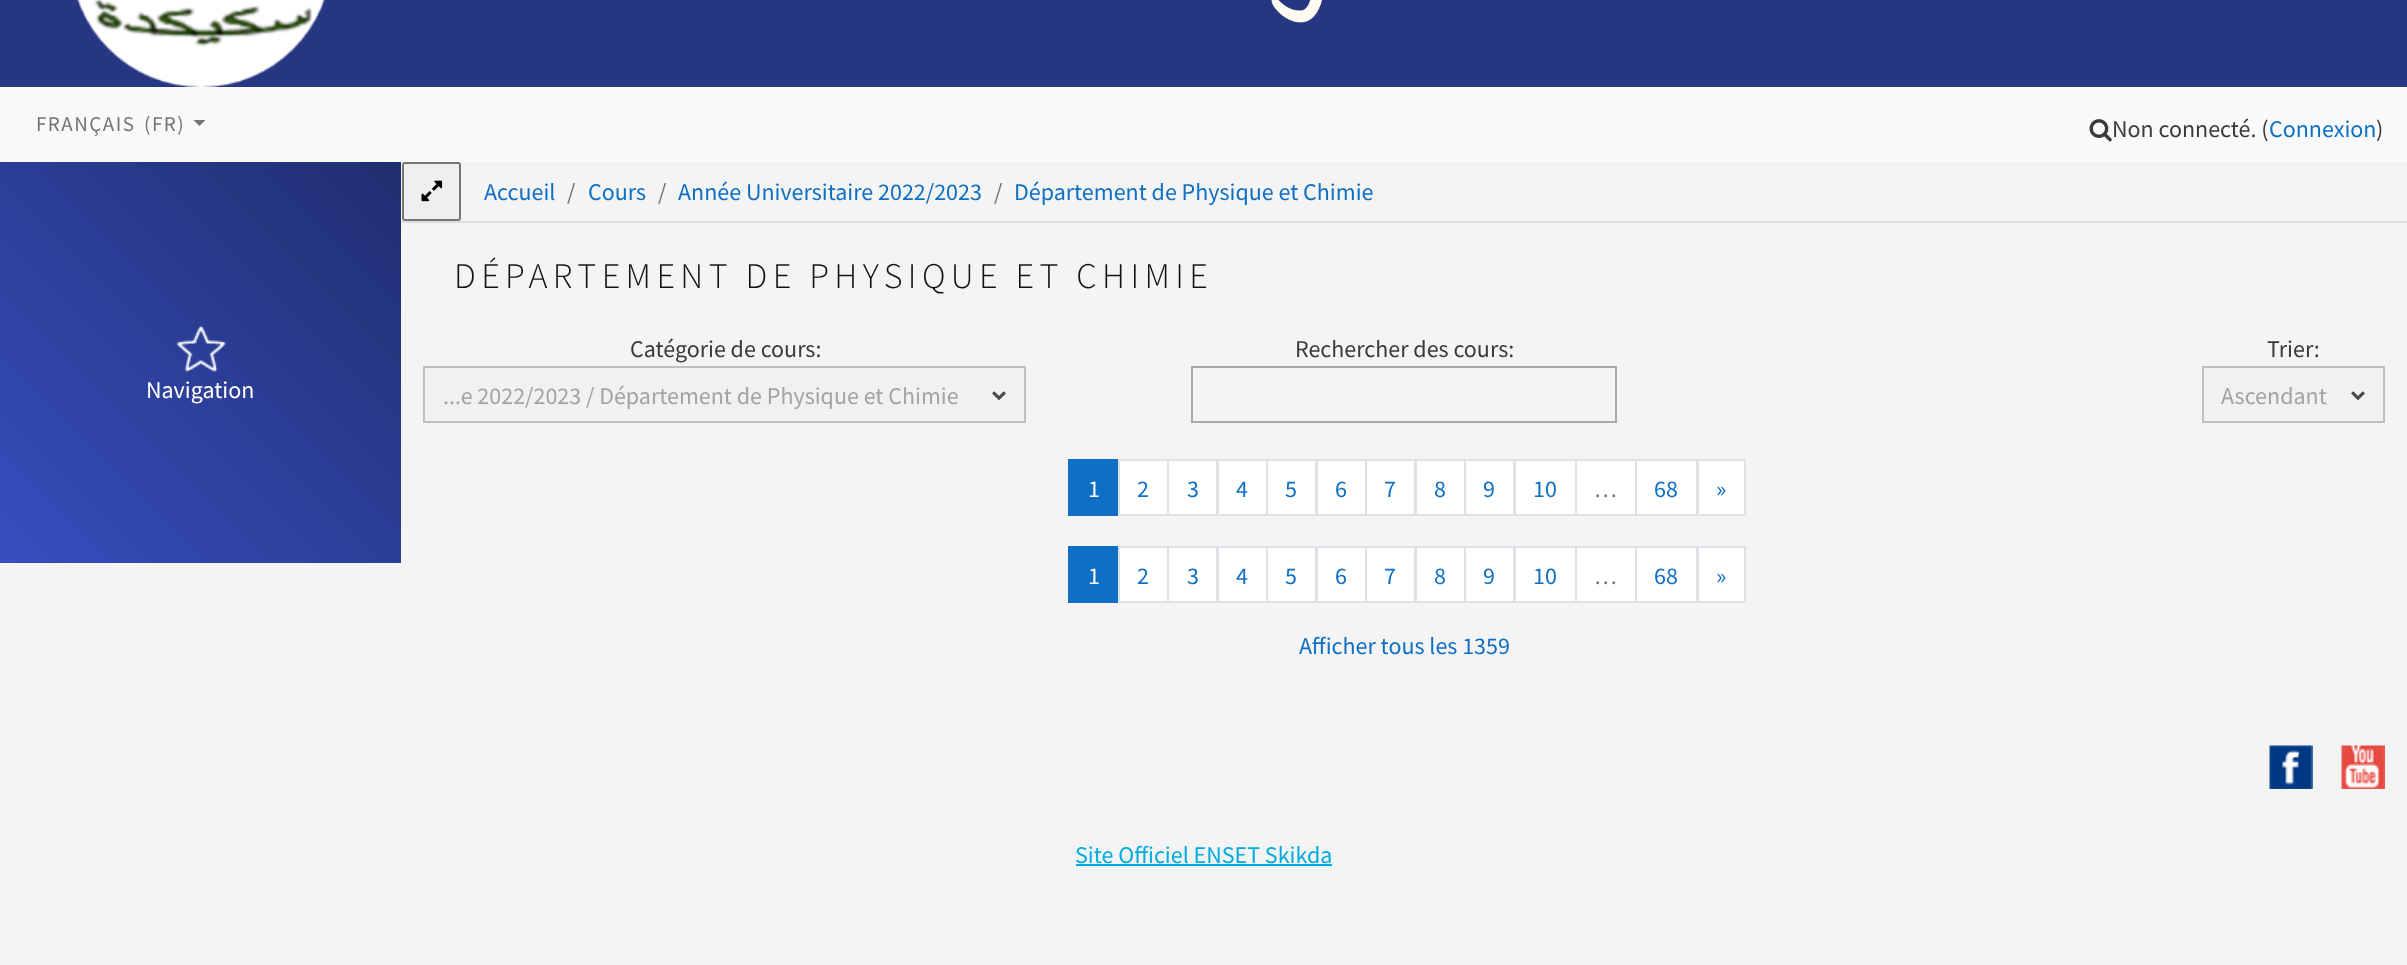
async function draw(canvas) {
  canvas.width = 2407
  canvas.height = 965
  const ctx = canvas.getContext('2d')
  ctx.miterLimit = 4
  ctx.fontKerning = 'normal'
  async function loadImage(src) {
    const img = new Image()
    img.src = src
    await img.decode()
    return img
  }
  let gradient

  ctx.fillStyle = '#f4f4f4'
  ctx.fillRect(0, 0, 2407, 965)
  ctx.fillStyle = '#263683'
  ctx.fillRect(0, 0, 2407, 87)
  ctx.drawImage(await loadImage('image0.png'), 1271, 0, 51, 23)
  ctx.drawImage(await loadImage('image1.png'), 77, 0, 248, 87)
  ctx.fillStyle = '#f8f9fa'
  ctx.fillRect(0, 87, 2407, 75)
  ctx.letterSpacing = '1.5px'
  ctx.wordSpacing = '3px'
  ctx.font = '21px Source Sans Pro'
  ctx.fillStyle = '#747475'
  ctx.fillText('FRANÇAIS (FR)', 36, 131)
  ctx.beginPath()
  ctx.moveTo(193.5, 120)
  ctx.lineTo(205.5, 120)
  ctx.lineTo(199.5, 126)
  ctx.closePath()
  ctx.fill()
  ctx.drawImage(await loadImage('image2.png'), 2089, 119, 23, 23)
  ctx.letterSpacing = '0px'
  ctx.wordSpacing = '0px'
  ctx.font = '24px Source Sans Pro'
  ctx.fillStyle = '#3a3a3a'
  ctx.fillText('Non connecté. (', 2112, 137)
  ctx.fillStyle = '#0f6fc5'
  ctx.fillText('Connexion', 2269, 137)
  ctx.fillStyle = '#3a3a3a'
  ctx.fillText(')', 2376, 137)
  gradient = ctx.createLinearGradient(0, 563, 401, 162)
  gradient.addColorStop(0, '#374ebe')
  gradient.addColorStop(1, '#202e6f')
  ctx.fillStyle = gradient
  ctx.fillRect(0, 162, 401, 401)
  ctx.drawImage(await loadImage('image3.png'), 176, 325, 50, 48)
  ctx.fillStyle = '#fff'
  ctx.fillText('Navigation', 146, 398)
  ctx.fillStyle = '#ddd'
  ctx.fillRect(401, 221, 2006, 2)
  ctx.fillStyle = '#efefef'
  ctx.beginPath()
  ctx.roundRect(403, 163, 57, 57, 2)
  ctx.fill()
  ctx.strokeStyle = '#767676'
  ctx.lineWidth = 2
  ctx.stroke()
  ctx.drawImage(await loadImage('image4.png'), 421, 180, 22, 22)
  ctx.fillStyle = '#0f6fc5'
  ctx.fillText('Accueil', 484, 200)
  ctx.fillStyle = '#6c757d'
  ctx.fillText('/', 567, 200)
  ctx.fillStyle = '#0f6fc5'
  ctx.fillText('Cours', 588, 200)
  ctx.fillStyle = '#6c757d'
  ctx.fillText('/', 658, 200)
  ctx.fillStyle = '#0f6fc5'
  ctx.fillText('Année Universitaire 2022/2023', 678, 200)
  ctx.fillStyle = '#6c757d'
  ctx.fillText('/', 994, 200)
  ctx.fillStyle = '#0f6fc5'
  ctx.fillText('Département de Physique et Chimie', 1014, 200)
  ctx.letterSpacing = '5.4px'
  ctx.font = '300 36px Source Sans Pro'
  ctx.fillStyle = '#131313'
  ctx.fillText('DÉPARTEMENT DE PHYSIQUE ET CHIMIE', 454, 288)
  ctx.letterSpacing = '0px'
  ctx.font = '24px Source Sans Pro'
  ctx.fillStyle = '#3a3a3a'
  ctx.fillText('Catégorie de cours:', 630, 357)
  ctx.fillStyle = '#f1f1f1'
  ctx.fillRect(425, 368, 599, 53)
  ctx.drawImage(await loadImage('image5.png'), 992, 391, 14, 10)
  ctx.strokeStyle = '#c0c0c0'
  ctx.strokeRect(424, 367, 601, 55)
  ctx.fillStyle = '#a3a3a3'
  ctx.fillText('...e 2022/2023 / Département de Physique et Chimie', 443, 404)
  ctx.fillStyle = '#3a3a3a'
  ctx.fillText('Rechercher des cours:', 1295, 357)
  ctx.strokeStyle = '#a9a9a9'
  ctx.strokeRect(1192, 367, 424, 55)
  ctx.fillText('Trier:', 2267, 357)
  ctx.fillStyle = '#f1f1f1'
  ctx.fillRect(2204, 368, 179, 53)
  ctx.drawImage(await loadImage('image5.png'), 2351, 391, 14, 10)
  ctx.strokeStyle = '#c0c0c0'
  ctx.strokeRect(2203, 367, 181, 55)
  ctx.fillStyle = '#a3a3a3'
  ctx.fillText('Ascendant', 2221, 404)
  ctx.fillStyle = '#0f6fc5'
  ctx.fillRect(1068, 459, 50, 57)
  ctx.fillStyle = '#fff'
  ctx.fillText('1', 1088, 497)
  ctx.beginPath()
  ctx.rect(1119, 460, 49, 55)
  ctx.fill()
  ctx.strokeStyle = '#dee2e6'
  ctx.stroke()
  ctx.fillStyle = '#0f6fc5'
  ctx.fillText('2', 1137, 497)
  ctx.fillStyle = '#fff'
  ctx.beginPath()
  ctx.rect(1168, 460, 49, 55)
  ctx.fill()
  ctx.stroke()
  ctx.fillStyle = '#0f6fc5'
  ctx.fillText('3', 1187, 497)
  ctx.fillStyle = '#fff'
  ctx.beginPath()
  ctx.rect(1218, 460, 49, 55)
  ctx.fill()
  ctx.stroke()
  ctx.fillStyle = '#0f6fc5'
  ctx.fillText('4', 1236, 497)
  ctx.fillStyle = '#fff'
  ctx.beginPath()
  ctx.rect(1267, 460, 49, 55)
  ctx.fill()
  ctx.stroke()
  ctx.fillStyle = '#0f6fc5'
  ctx.fillText('5', 1285, 497)
  ctx.fillStyle = '#fff'
  ctx.beginPath()
  ctx.rect(1317, 460, 49, 55)
  ctx.fill()
  ctx.stroke()
  ctx.fillStyle = '#0f6fc5'
  ctx.fillText('6', 1335, 497)
  ctx.fillStyle = '#fff'
  ctx.beginPath()
  ctx.rect(1366, 460, 49, 55)
  ctx.fill()
  ctx.stroke()
  ctx.fillStyle = '#0f6fc5'
  ctx.fillText('7', 1384, 497)
  ctx.fillStyle = '#fff'
  ctx.beginPath()
  ctx.rect(1416, 460, 49, 55)
  ctx.fill()
  ctx.stroke()
  ctx.fillStyle = '#0f6fc5'
  ctx.fillText('8', 1434, 497)
  ctx.fillStyle = '#fff'
  ctx.beginPath()
  ctx.rect(1465, 460, 49, 55)
  ctx.fill()
  ctx.stroke()
  ctx.fillStyle = '#0f6fc5'
  ctx.fillText('9', 1483, 497)
  ctx.fillStyle = '#fff'
  ctx.beginPath()
  ctx.rect(1515, 460, 61, 55)
  ctx.fill()
  ctx.stroke()
  ctx.fillStyle = '#0f6fc5'
  ctx.fillText('10', 1533, 497)
  ctx.fillStyle = '#fff'
  ctx.beginPath()
  ctx.rect(1576, 460, 60, 55)
  ctx.fill()
  ctx.stroke()
  ctx.fillStyle = '#6c757d'
  ctx.fillText('…', 1594, 497)
  ctx.fillStyle = '#fff'
  ctx.beginPath()
  ctx.rect(1636, 460, 61, 55)
  ctx.fill()
  ctx.stroke()
  ctx.fillStyle = '#0f6fc5'
  ctx.fillText('68', 1654, 497)
  ctx.fillStyle = '#fff'
  ctx.beginPath()
  ctx.rect(1698, 460, 47, 55)
  ctx.fill()
  ctx.stroke()
  ctx.fillStyle = '#0f6fc5'
  ctx.fillText('»', 1716, 497)
  ctx.fillRect(1068, 546, 50, 57)
  ctx.fillStyle = '#fff'
  ctx.fillText('1', 1088, 584)
  ctx.beginPath()
  ctx.rect(1119, 547, 49, 55)
  ctx.fill()
  ctx.stroke()
  ctx.fillStyle = '#0f6fc5'
  ctx.fillText('2', 1137, 584)
  ctx.fillStyle = '#fff'
  ctx.beginPath()
  ctx.rect(1168, 547, 49, 55)
  ctx.fill()
  ctx.stroke()
  ctx.fillStyle = '#0f6fc5'
  ctx.fillText('3', 1187, 584)
  ctx.fillStyle = '#fff'
  ctx.beginPath()
  ctx.rect(1218, 547, 49, 55)
  ctx.fill()
  ctx.stroke()
  ctx.fillStyle = '#0f6fc5'
  ctx.fillText('4', 1236, 584)
  ctx.fillStyle = '#fff'
  ctx.beginPath()
  ctx.rect(1267, 547, 49, 55)
  ctx.fill()
  ctx.stroke()
  ctx.fillStyle = '#0f6fc5'
  ctx.fillText('5', 1285, 584)
  ctx.fillStyle = '#fff'
  ctx.beginPath()
  ctx.rect(1317, 547, 49, 55)
  ctx.fill()
  ctx.stroke()
  ctx.fillStyle = '#0f6fc5'
  ctx.fillText('6', 1335, 584)
  ctx.fillStyle = '#fff'
  ctx.beginPath()
  ctx.rect(1366, 547, 49, 55)
  ctx.fill()
  ctx.stroke()
  ctx.fillStyle = '#0f6fc5'
  ctx.fillText('7', 1384, 584)
  ctx.fillStyle = '#fff'
  ctx.beginPath()
  ctx.rect(1416, 547, 49, 55)
  ctx.fill()
  ctx.stroke()
  ctx.fillStyle = '#0f6fc5'
  ctx.fillText('8', 1434, 584)
  ctx.fillStyle = '#fff'
  ctx.beginPath()
  ctx.rect(1465, 547, 49, 55)
  ctx.fill()
  ctx.stroke()
  ctx.fillStyle = '#0f6fc5'
  ctx.fillText('9', 1483, 584)
  ctx.fillStyle = '#fff'
  ctx.beginPath()
  ctx.rect(1515, 547, 61, 55)
  ctx.fill()
  ctx.stroke()
  ctx.fillStyle = '#0f6fc5'
  ctx.fillText('10', 1533, 584)
  ctx.fillStyle = '#fff'
  ctx.beginPath()
  ctx.rect(1576, 547, 60, 55)
  ctx.fill()
  ctx.stroke()
  ctx.fillStyle = '#6c757d'
  ctx.fillText('…', 1594, 584)
  ctx.fillStyle = '#fff'
  ctx.beginPath()
  ctx.rect(1636, 547, 61, 55)
  ctx.fill()
  ctx.stroke()
  ctx.fillStyle = '#0f6fc5'
  ctx.fillText('68', 1654, 584)
  ctx.fillStyle = '#fff'
  ctx.beginPath()
  ctx.rect(1698, 547, 47, 55)
  ctx.fill()
  ctx.stroke()
  ctx.fillStyle = '#0f6fc5'
  ctx.fillText('»', 1716, 584)
  ctx.fillText('Afficher tous les 1359', 1299, 654)
  ctx.drawImage(await loadImage('image6.png'), 2269, 745, 44, 44)
  ctx.drawImage(await loadImage('image7.png'), 2341, 745, 44, 44)
  ctx.fillStyle = '#00acdf'
  ctx.fillText('Site Officiel ENSET Skikda', 1075, 863)
  ctx.fillRect(1076, 864, 256, 2)
}

draw(document.querySelector('canvas'))
